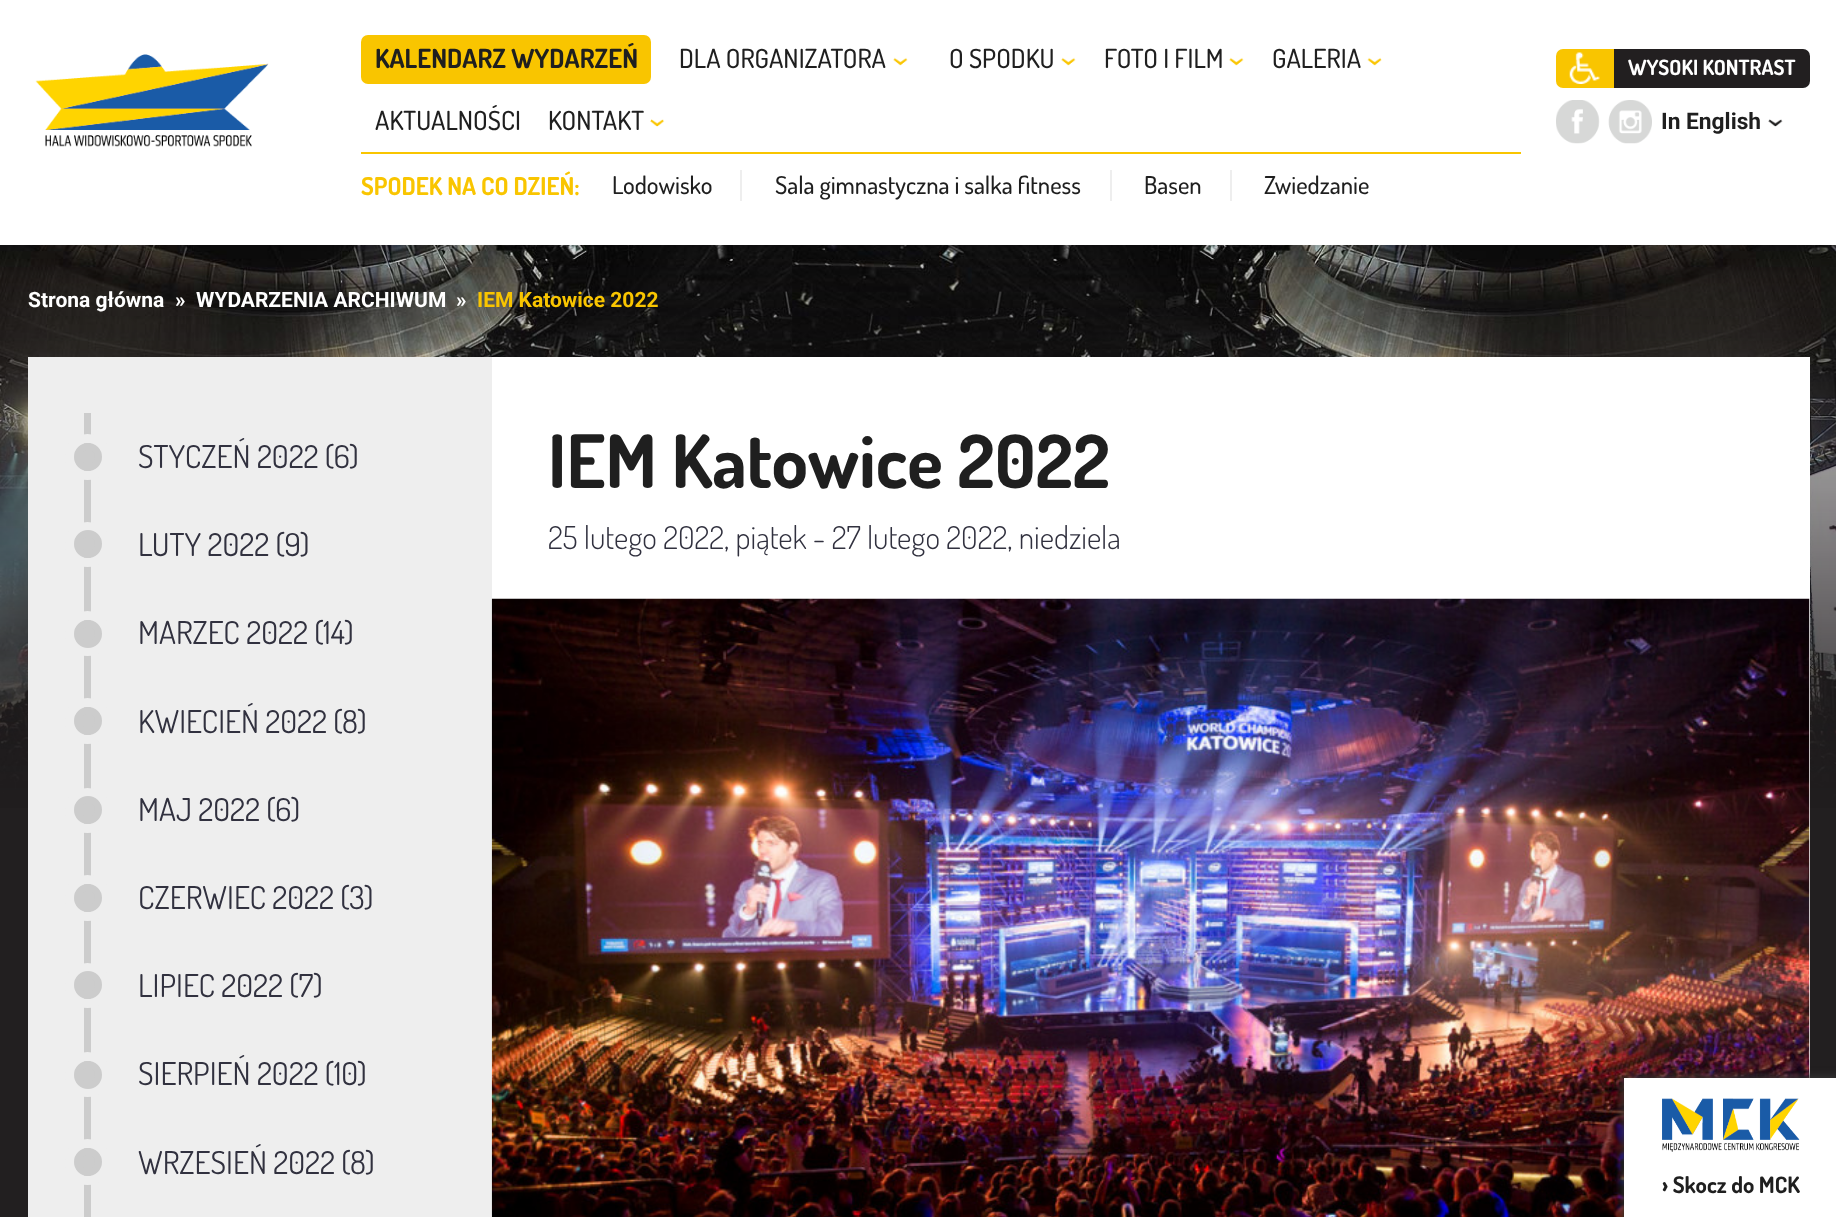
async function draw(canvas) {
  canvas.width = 1836
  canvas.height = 1217
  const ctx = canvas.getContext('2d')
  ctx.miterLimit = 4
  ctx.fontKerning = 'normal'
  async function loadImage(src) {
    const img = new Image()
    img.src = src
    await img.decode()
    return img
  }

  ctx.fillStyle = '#221f20'
  ctx.fillRect(0, 0, 1836, 1217)
  ctx.drawImage(await loadImage('image0.png'), 0, 245, 1836, 563)
  ctx.fillStyle = '#fff'
  ctx.fillRect(0, 0, 1836, 245)
  ctx.drawImage(await loadImage('image1.png'), 35, 54, 234, 93)
  ctx.fillStyle = '#f9c500'
  ctx.beginPath()
  ctx.roundRect(361, 35, 290, 49, 7)
  ctx.fill()
  ctx.font = 'bold 26.25px Dosis'
  ctx.fillStyle = '#1f1f1f'
  ctx.fillText('KALENDARZ WYDARZEŃ', 375, 68)
  ctx.font = '500 26.25px Dosis'
  ctx.fillText('DLA ORGANIZATORA', 679, 68)
  ctx.drawImage(await loadImage('image2.png'), 893, 57, 15, 9)
  ctx.fillText('O SPODKU', 949, 68)
  ctx.drawImage(await loadImage('image3.png'), 1061, 57, 15, 9)
  ctx.fillText('FOTO I FILM', 1104, 68)
  ctx.drawImage(await loadImage('image3.png'), 1229, 57, 15, 9)
  ctx.fillText('GALERIA', 1272, 68)
  ctx.drawImage(await loadImage('image4.png'), 1367, 57, 15, 9)
  ctx.fillText('AKTUALNOŚCI', 375, 130)
  ctx.fillText('KONTAKT', 548, 130)
  ctx.drawImage(await loadImage('image5.png'), 650, 119, 15, 8)
  ctx.fillStyle = '#f9c500'
  ctx.fillRect(361, 152, 1160, 2)
  ctx.font = 'bold 24.5px Dosis'
  ctx.fillText('SPODEK NA CO DZIEŃ:', 361, 195)
  ctx.fillStyle = '#eee'
  ctx.fillRect(740, 170, 2, 31)
  ctx.font = '500 24.5px Dosis'
  ctx.fillStyle = '#1f1f1f'
  ctx.fillText('Lodowisko', 612, 194)
  ctx.fillStyle = '#eee'
  ctx.fillRect(1110, 170, 2, 31)
  ctx.fillStyle = '#1f1f1f'
  ctx.fillText('Sala gimnastyczna i salka fitness', 775, 194)
  ctx.fillStyle = '#eee'
  ctx.fillRect(1230, 170, 2, 31)
  ctx.fillStyle = '#1f1f1f'
  ctx.fillText('Basen', 1144, 194)
  ctx.fillText('Zwiedzanie', 1264, 194)
  ctx.fillStyle = '#f9c500'
  ctx.beginPath()
  ctx.roundRect(1556, 49, 58, 39, [7, 0, 0, 7])
  ctx.fill()
  ctx.drawImage(await loadImage('image6.png'), 1569, 52, 31, 32)
  ctx.fillStyle = '#221f20'
  ctx.beginPath()
  ctx.roundRect(1614, 49, 196, 39, [0, 7, 7, 0])
  ctx.fill()
  ctx.font = 'bold 21px Dosis'
  ctx.fillStyle = '#fff'
  ctx.fillText('WYSOKI KONTRAST', 1628, 75)
  ctx.drawImage(await loadImage('image7.png'), 1556, 100, 44, 44)
  ctx.drawImage(await loadImage('image8.png'), 1608, 100, 44, 44)
  ctx.drawImage(await loadImage('image9.png'), 1768, 119, 15, 8)
  ctx.font = 'bold 22.75px Roboto'
  ctx.fillStyle = '#1f1f1f'
  ctx.fillText('In English', 1661, 129)
  ctx.font = 'bold 21px Roboto'
  ctx.fillStyle = '#fff'
  ctx.fillText('Strona główna', 28, 307)
  ctx.fillText('»', 175, 307)
  ctx.fillText('WYDARZENIA ARCHIWUM', 196, 307)
  ctx.fillText('»', 456, 307)
  ctx.fillStyle = '#f9c500'
  ctx.fillText('IEM Katowice 2022', 477, 307)
  ctx.fillStyle = '#eee'
  ctx.fillRect(28, 357, 464, 860)
  ctx.fillStyle = '#ccc'
  ctx.fillRect(84, 413, 7, 804)
  ctx.beginPath()
  ctx.roundRect(69.5, 438.5, 36, 37, 18)
  ctx.strokeStyle = '#eee'
  ctx.lineWidth = 9
  ctx.stroke()
  ctx.beginPath()
  ctx.arc(88, 457, 10.5, 0, 2 * Math.PI)
  ctx.fill()
  ctx.strokeStyle = '#ccc'
  ctx.lineWidth = 7
  ctx.stroke()
  ctx.font = '31.5px Dosis'
  ctx.fillStyle = '#31313f'
  ctx.fillText('STYCZEŃ 2022 (6)', 138, 468)
  ctx.beginPath()
  ctx.arc(87.5, 544.5, 18, 0, 2 * Math.PI)
  ctx.strokeStyle = '#eee'
  ctx.lineWidth = 9
  ctx.stroke()
  ctx.fillStyle = '#ccc'
  ctx.beginPath()
  ctx.arc(88, 544, 10.5, 0, 2 * Math.PI)
  ctx.fill()
  ctx.strokeStyle = '#ccc'
  ctx.lineWidth = 7
  ctx.stroke()
  ctx.fillStyle = '#31313f'
  ctx.fillText('LUTY 2022 (9)', 138, 556)
  ctx.beginPath()
  ctx.arc(87.5, 633.5, 18, 0, 2 * Math.PI)
  ctx.strokeStyle = '#eee'
  ctx.lineWidth = 9
  ctx.stroke()
  ctx.fillStyle = '#ccc'
  ctx.beginPath()
  ctx.arc(88, 634, 10.5, 0, 2 * Math.PI)
  ctx.fill()
  ctx.strokeStyle = '#ccc'
  ctx.lineWidth = 7
  ctx.stroke()
  ctx.fillStyle = '#31313f'
  ctx.fillText('MARZEC 2022 (14)', 138, 644)
  ctx.beginPath()
  ctx.roundRect(69.5, 702.5, 36, 37, 18)
  ctx.strokeStyle = '#eee'
  ctx.lineWidth = 9
  ctx.stroke()
  ctx.fillStyle = '#ccc'
  ctx.beginPath()
  ctx.arc(88, 721, 10.5, 0, 2 * Math.PI)
  ctx.fill()
  ctx.strokeStyle = '#ccc'
  ctx.lineWidth = 7
  ctx.stroke()
  ctx.fillStyle = '#31313f'
  ctx.fillText('KWIECIEŃ 2022 (8)', 138, 733)
  ctx.beginPath()
  ctx.arc(87.5, 810.5, 18, 0, 2 * Math.PI)
  ctx.strokeStyle = '#eee'
  ctx.lineWidth = 9
  ctx.stroke()
  ctx.fillStyle = '#ccc'
  ctx.beginPath()
  ctx.arc(88, 810, 10.5, 0, 2 * Math.PI)
  ctx.fill()
  ctx.strokeStyle = '#ccc'
  ctx.lineWidth = 7
  ctx.stroke()
  ctx.fillStyle = '#31313f'
  ctx.fillText('MAJ 2022 (6)', 138, 821)
  ctx.beginPath()
  ctx.roundRect(69.5, 879.5, 36, 37, 18)
  ctx.strokeStyle = '#eee'
  ctx.lineWidth = 9
  ctx.stroke()
  ctx.fillStyle = '#ccc'
  ctx.beginPath()
  ctx.arc(88, 898, 10.5, 0, 2 * Math.PI)
  ctx.fill()
  ctx.strokeStyle = '#ccc'
  ctx.lineWidth = 7
  ctx.stroke()
  ctx.fillStyle = '#31313f'
  ctx.fillText('CZERWIEC 2022 (3)', 138, 909)
  ctx.beginPath()
  ctx.arc(87.5, 985.5, 18, 0, 2 * Math.PI)
  ctx.strokeStyle = '#eee'
  ctx.lineWidth = 9
  ctx.stroke()
  ctx.fillStyle = '#ccc'
  ctx.beginPath()
  ctx.arc(88, 985, 10.5, 0, 2 * Math.PI)
  ctx.fill()
  ctx.strokeStyle = '#ccc'
  ctx.lineWidth = 7
  ctx.stroke()
  ctx.fillStyle = '#31313f'
  ctx.fillText('LIPIEC 2022 (7)', 138, 997)
  ctx.beginPath()
  ctx.arc(87.5, 1074.5, 18, 0, 2 * Math.PI)
  ctx.strokeStyle = '#eee'
  ctx.lineWidth = 9
  ctx.stroke()
  ctx.fillStyle = '#ccc'
  ctx.beginPath()
  ctx.arc(88, 1075, 10.5, 0, 2 * Math.PI)
  ctx.fill()
  ctx.strokeStyle = '#ccc'
  ctx.lineWidth = 7
  ctx.stroke()
  ctx.fillStyle = '#31313f'
  ctx.fillText('SIERPIEŃ 2022 (10)', 138, 1085)
  ctx.beginPath()
  ctx.roundRect(69.5, 1143.5, 36, 37, 18)
  ctx.strokeStyle = '#eee'
  ctx.lineWidth = 9
  ctx.stroke()
  ctx.fillStyle = '#ccc'
  ctx.beginPath()
  ctx.arc(88, 1162, 10.5, 0, 2 * Math.PI)
  ctx.fill()
  ctx.strokeStyle = '#ccc'
  ctx.lineWidth = 7
  ctx.stroke()
  ctx.fillStyle = '#31313f'
  ctx.fillText('WRZESIEŃ 2022 (8)', 138, 1174)
  ctx.fillStyle = '#fff'
  ctx.fillRect(492, 357, 1318, 721)
  ctx.font = 'bold 73.5px Dosis'
  ctx.fillStyle = '#1f1f1f'
  ctx.fillText('IEM Katowice 2022', 548, 488)
  ctx.font = '300 31.5px Dosis'
  ctx.fillStyle = '#31313f'
  ctx.fillText('25 lutego 2022, piątek - 27 lutego 2022, niedziela', 548, 549)
  ctx.drawImage(await loadImage('image10.png'), 491, 598, 1319, 619)
  ctx.fillStyle = '#353535cc'
  ctx.filter = 'blur(3.5px)'
  ctx.beginPath()
  ctx.rect(1621, 1075, 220, 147)
  ctx.fill()
  ctx.filter = 'none'
  ctx.fillStyle = '#fff'
  ctx.fillRect(1624, 1078, 212, 139)
  ctx.drawImage(await loadImage('image11.png'), 1662, 1098, 138, 54)
  ctx.font = 'bold 22.75px Dosis'
  ctx.fillStyle = '#1f1f1f'
  ctx.fillText('› Skocz do MCK', 1662, 1193)
}

draw(document.querySelector('canvas'))
